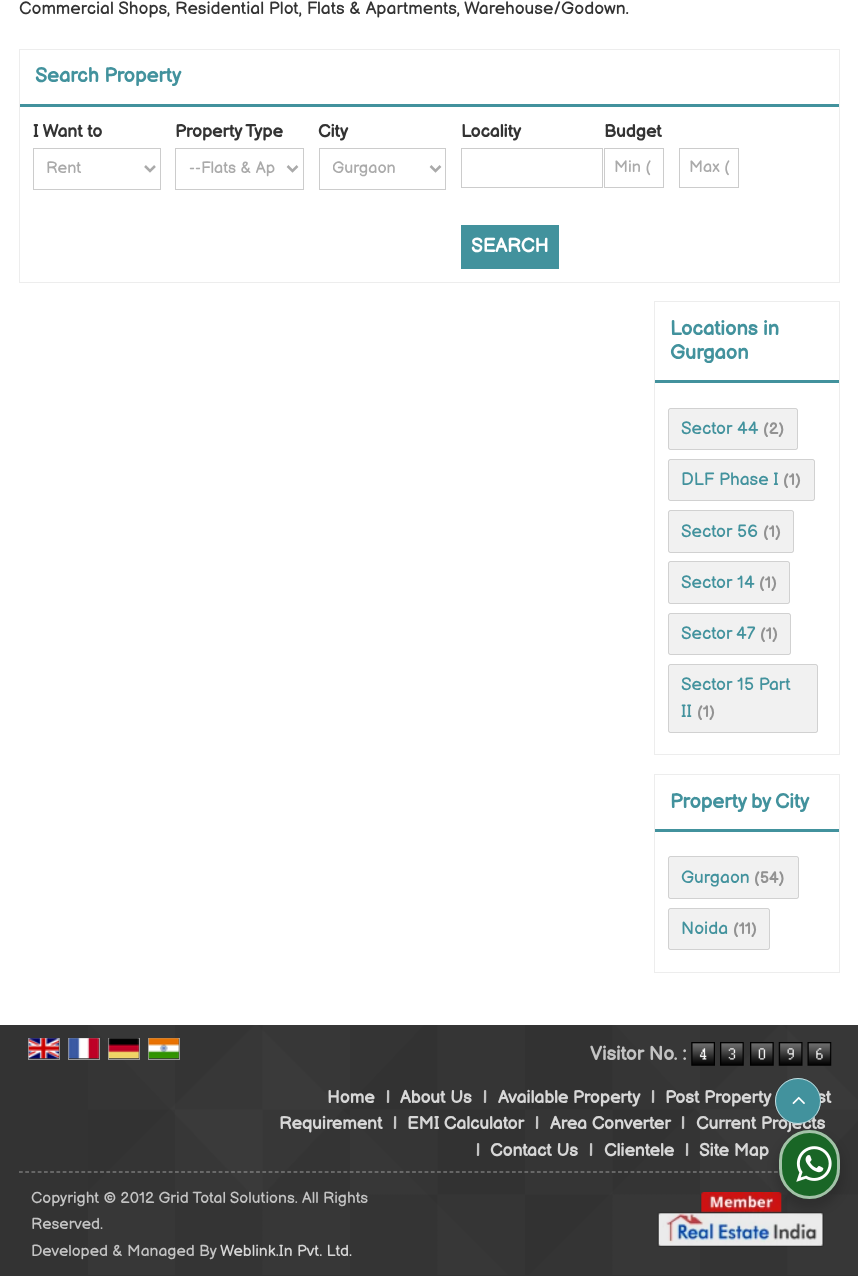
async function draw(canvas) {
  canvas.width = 858
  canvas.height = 1276
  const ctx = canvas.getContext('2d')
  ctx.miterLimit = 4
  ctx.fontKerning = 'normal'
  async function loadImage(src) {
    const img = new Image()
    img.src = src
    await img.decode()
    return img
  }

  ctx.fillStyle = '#fff'
  ctx.fillRect(0, 0, 858, 1276)
  ctx.font = '17.5px Balsamiq Sans'
  ctx.fillStyle = '#333'
  ctx.fillText('Commercial Shops, Residential Plot, Flats & Apartments, Warehouse/Godown.', 19, 14)
  ctx.strokeStyle = '#ededed'
  ctx.strokeRect(19.5, 49.5, 820, 233)
  ctx.fillStyle = '#42929d'
  ctx.fillRect(20, 104, 819, 3)
  ctx.font = 'bold 20px Balsamiq Sans'
  ctx.fillText('Search Property', 35, 82)
  ctx.font = 'bold 17.5px Balsamiq Sans'
  ctx.fillStyle = '#333'
  ctx.fillText('I Want to', 33, 137)
  ctx.strokeStyle = '#ccc'
  ctx.strokeRect(33.5, 148.5, 127, 41)
  ctx.beginPath()
  ctx.moveTo(145, 166)
  ctx.lineTo(150, 171)
  ctx.lineTo(155, 166)
  ctx.strokeStyle = '#aaa'
  ctx.lineWidth = 2.5
  ctx.stroke()
  ctx.font = '16.25px Balsamiq Sans'
  ctx.fillStyle = '#aaa'
  ctx.fillText('Rent', 46, 173)
  ctx.font = 'bold 17.5px Balsamiq Sans'
  ctx.fillStyle = '#333'
  ctx.fillText('Property Type', 175, 137)
  ctx.strokeStyle = '#ccc'
  ctx.lineWidth = 1
  ctx.strokeRect(175.5, 148.5, 128, 41)
  ctx.beginPath()
  ctx.moveTo(287.5, 166)
  ctx.lineTo(292.5, 171)
  ctx.lineTo(297.5, 166)
  ctx.strokeStyle = '#aaa'
  ctx.lineWidth = 2.5
  ctx.stroke()
  ctx.font = '16.25px Balsamiq Sans'
  ctx.fillStyle = '#aaa'
  ctx.fillText('--Flats & Ap', 189, 173)
  ctx.font = 'bold 17.5px Balsamiq Sans'
  ctx.fillStyle = '#333'
  ctx.fillText('City', 318, 137)
  ctx.strokeStyle = '#ccc'
  ctx.lineWidth = 1
  ctx.strokeRect(319.5, 148.5, 126, 41)
  ctx.beginPath()
  ctx.moveTo(430.5, 166)
  ctx.lineTo(435.5, 171)
  ctx.lineTo(440.5, 166)
  ctx.strokeStyle = '#aaa'
  ctx.lineWidth = 2.5
  ctx.stroke()
  ctx.save()
  ctx.beginPath()
  ctx.rect(333, 158, 85, 22)
  ctx.clip()
  ctx.font = '16.25px Balsamiq Sans'
  ctx.fillStyle = '#aaa'
  ctx.fillText('Gurgaon', 332, 173)
  ctx.restore()
  ctx.fillText('Locality', 461, 137)
  ctx.strokeStyle = '#ccc'
  ctx.lineWidth = 1
  ctx.strokeRect(461.5, 148.5, 141, 39)
  ctx.fillText('Budget', 604, 137)
  ctx.strokeRect(604.5, 148.5, 59, 39)
  ctx.font = '16.25px Balsamiq Sans'
  ctx.fillStyle = '#aaa'
  ctx.fillText('Min (', 614, 172)
  ctx.strokeRect(679.5, 148.5, 59, 39)
  ctx.fillText('Max (', 689, 172)
  ctx.fillStyle = '#42929d'
  ctx.fillRect(461, 225, 98, 44)
  ctx.font = 'bold 19.25px Balsamiq Sans'
  ctx.fillStyle = '#fff'
  ctx.fillText('SEARCH', 471, 252)
  ctx.strokeStyle = '#ededed'
  ctx.strokeRect(654.5, 301.5, 185, 453)
  ctx.fillStyle = '#42929d'
  ctx.fillRect(655, 380, 184, 3)
  ctx.font = 'bold 20px Balsamiq Sans'
  ctx.fillText('Locations in', 670, 335)
  ctx.fillText('Gurgaon', 670, 359)
  ctx.fillStyle = '#f1f1f1'
  ctx.beginPath()
  ctx.roundRect(668, 408, 130, 42, 2.5)
  ctx.fill()
  ctx.beginPath()
  ctx.roundRect(668.5, 408.5, 129, 41, 2)
  ctx.strokeStyle = '#00000021'
  ctx.stroke()
  ctx.font = '17.5px Balsamiq Sans'
  ctx.fillStyle = '#42929d'
  ctx.fillText('Sector 44', 681, 434)
  ctx.font = 'bold 15.75px Balsamiq Sans'
  ctx.fillStyle = '#929292'
  ctx.fillText('(2)', 763, 434)
  ctx.fillStyle = '#f1f1f1'
  ctx.beginPath()
  ctx.roundRect(668, 459, 147, 42, 2.5)
  ctx.fill()
  ctx.beginPath()
  ctx.roundRect(668.5, 459.5, 146, 41, 2)
  ctx.stroke()
  ctx.font = '17.5px Balsamiq Sans'
  ctx.fillStyle = '#42929d'
  ctx.fillText('DLF Phase I', 681, 485)
  ctx.font = 'bold 15.75px Balsamiq Sans'
  ctx.fillStyle = '#929292'
  ctx.fillText('(1)', 783, 485)
  ctx.fillStyle = '#f1f1f1'
  ctx.beginPath()
  ctx.roundRect(668, 510, 126, 43, 2.5)
  ctx.fill()
  ctx.beginPath()
  ctx.roundRect(668.5, 510.5, 125, 42, 2)
  ctx.stroke()
  ctx.font = '17.5px Balsamiq Sans'
  ctx.fillStyle = '#42929d'
  ctx.fillText('Sector 56', 681, 537)
  ctx.font = 'bold 15.75px Balsamiq Sans'
  ctx.fillStyle = '#929292'
  ctx.fillText('(1)', 763, 537)
  ctx.fillStyle = '#f1f1f1'
  ctx.beginPath()
  ctx.roundRect(668, 561, 122, 43, 2.5)
  ctx.fill()
  ctx.beginPath()
  ctx.roundRect(668.5, 561.5, 121, 42, 2)
  ctx.stroke()
  ctx.font = '17.5px Balsamiq Sans'
  ctx.fillStyle = '#42929d'
  ctx.fillText('Sector 14', 681, 588)
  ctx.font = 'bold 15.75px Balsamiq Sans'
  ctx.fillStyle = '#929292'
  ctx.fillText('(1)', 759, 588)
  ctx.fillStyle = '#f1f1f1'
  ctx.beginPath()
  ctx.roundRect(668, 613, 123, 42, 2.5)
  ctx.fill()
  ctx.beginPath()
  ctx.roundRect(668.5, 613.5, 122, 41, 2)
  ctx.stroke()
  ctx.wordSpacing = '-1px'
  ctx.font = '17.5px Balsamiq Sans'
  ctx.fillStyle = '#42929d'
  ctx.fillText('Sector 47', 681, 639)
  ctx.wordSpacing = '0px'
  ctx.font = 'bold 15.75px Balsamiq Sans'
  ctx.fillStyle = '#929292'
  ctx.fillText('(1)', 760, 639)
  ctx.fillStyle = '#f1f1f1'
  ctx.beginPath()
  ctx.roundRect(668, 664, 150, 69, 2.5)
  ctx.fill()
  ctx.beginPath()
  ctx.roundRect(668.5, 664.5, 149, 68, 2)
  ctx.stroke()
  ctx.font = '17.5px Balsamiq Sans'
  ctx.fillStyle = '#42929d'
  ctx.fillText('Sector 15 Part', 681, 690)
  ctx.fillText('II', 681, 717)
  ctx.font = 'bold 15.75px Balsamiq Sans'
  ctx.fillStyle = '#929292'
  ctx.fillText('(1)', 697, 717)
  ctx.strokeStyle = '#ededed'
  ctx.strokeRect(654.5, 774.5, 185, 198)
  ctx.fillStyle = '#42929d'
  ctx.fillRect(655, 829, 184, 3)
  ctx.font = 'bold 20px Balsamiq Sans'
  ctx.fillText('Property by City', 670, 808)
  ctx.fillStyle = '#f1f1f1'
  ctx.beginPath()
  ctx.roundRect(668, 856, 131, 43, 2.5)
  ctx.fill()
  ctx.beginPath()
  ctx.roundRect(668.5, 856.5, 130, 42, 2)
  ctx.strokeStyle = '#00000021'
  ctx.stroke()
  ctx.font = '17.5px Balsamiq Sans'
  ctx.fillStyle = '#42929d'
  ctx.fillText('Gurgaon', 681, 883)
  ctx.font = 'bold 15.75px Balsamiq Sans'
  ctx.fillStyle = '#929292'
  ctx.fillText('(54)', 754, 883)
  ctx.fillStyle = '#f1f1f1'
  ctx.beginPath()
  ctx.roundRect(668, 908, 102, 42, 2.5)
  ctx.fill()
  ctx.beginPath()
  ctx.roundRect(668.5, 908.5, 101, 41, 2)
  ctx.stroke()
  ctx.font = '17.5px Balsamiq Sans'
  ctx.fillStyle = '#42929d'
  ctx.fillText('Noida', 681, 934)
  ctx.font = 'bold 15.75px Balsamiq Sans'
  ctx.fillStyle = '#929292'
  ctx.fillText('(11)', 733, 934)
  ctx.fillStyle = '#333'
  ctx.fillRect(0, 1025, 858, 251)
  ctx.drawImage(await loadImage('image0.png'), 88, 1025, 770, 250)
  ctx.strokeStyle = '#999'
  ctx.strokeRect(28.5, 1038.5, 31, 21)
  ctx.drawImage(await loadImage('image1.png'), 28, 1038, 31, 21)
  ctx.strokeStyle = '#9a9a9a'
  ctx.strokeRect(68.5, 1038.5, 31, 21)
  ctx.drawImage(await loadImage('image2.png'), 68, 1038, 31, 21)
  ctx.strokeStyle = '#9b9b9b'
  ctx.strokeRect(108.5, 1038.5, 31, 21)
  ctx.drawImage(await loadImage('image3.png'), 108, 1038, 31, 21)
  ctx.strokeStyle = '#ffffff80'
  ctx.strokeRect(148.5, 1038.5, 31, 21)
  ctx.drawImage(await loadImage('image4.png'), 148, 1038, 31, 21)
  ctx.font = 'bold 19.25px Balsamiq Sans'
  ctx.fillStyle = '#c3c3c3'
  ctx.fillText('Visitor No. :', 590, 1060)
  ctx.drawImage(await loadImage('image5.png'), 691, 1042, 24, 24)
  ctx.drawImage(await loadImage('image6.png'), 720, 1042, 24, 24)
  ctx.drawImage(await loadImage('image7.png'), 750, 1042, 24, 24)
  ctx.drawImage(await loadImage('image8.png'), 778, 1042, 25, 24)
  ctx.drawImage(await loadImage('image9.png'), 807, 1042, 25, 24)
  ctx.font = 'bold 17.5px Balsamiq Sans'
  ctx.fillStyle = '#d7d7d7'
  ctx.fillText('Home', 327, 1103)
  ctx.fillStyle = '#c3c3c3'
  ctx.fillText('|', 386, 1103)
  ctx.fillStyle = '#d7d7d7'
  ctx.fillText('About Us', 400, 1103)
  ctx.fillStyle = '#c3c3c3'
  ctx.fillText('|', 483, 1103)
  ctx.fillStyle = '#d7d7d7'
  ctx.fillText('Available Property', 498, 1103)
  ctx.fillStyle = '#c3c3c3'
  ctx.fillText('|', 651, 1103)
  ctx.fillStyle = '#d7d7d7'
  ctx.fillText('Post Property', 665, 1103)
  ctx.fillText('st', 817, 1103)
  ctx.fillText('Requirement', 279, 1129)
  ctx.fillStyle = '#c3c3c3'
  ctx.fillText('|', 393, 1129)
  ctx.fillStyle = '#d7d7d7'
  ctx.fillText('EMI Calculator', 407, 1129)
  ctx.fillStyle = '#c3c3c3'
  ctx.fillText('|', 535, 1129)
  ctx.fillStyle = '#d7d7d7'
  ctx.fillText('Area Converter', 550, 1129)
  ctx.fillStyle = '#c3c3c3'
  ctx.fillText('|', 681, 1129)
  ctx.fillStyle = '#d7d7d7'
  ctx.fillText('Current Projects', 696, 1129)
  ctx.fillStyle = '#c3c3c3'
  ctx.fillText('|', 476, 1156)
  ctx.fillStyle = '#d7d7d7'
  ctx.fillText('Contact Us', 490, 1156)
  ctx.fillStyle = '#c3c3c3'
  ctx.fillText('|', 589, 1156)
  ctx.fillStyle = '#d7d7d7'
  ctx.fillText('Clientele', 604, 1156)
  ctx.fillStyle = '#c3c3c3'
  ctx.fillText('|', 685, 1156)
  ctx.fillStyle = '#d7d7d7'
  ctx.fillText('Site Map', 699, 1156)
  ctx.beginPath()
  ctx.moveTo(19, 1172)
  ctx.lineTo(840, 1172)
  ctx.lineWidth = 1.2
  ctx.setLineDash([3.75, 2.49])
  ctx.stroke()
  ctx.font = '15.75px Balsamiq Sans'
  ctx.fillStyle = '#c3c3c3'
  ctx.fillText('Copyright © 2012 Grid Total Solutions. All Rights', 31, 1203)
  ctx.fillText('Reserved.', 31, 1229)
  ctx.fillText('Developed & Managed By', 31, 1256)
  ctx.fillStyle = '#d7d7d7'
  ctx.fillText('Weblink.In Pvt. Ltd.', 220, 1256)
  ctx.drawImage(await loadImage('image10.png'), 657, 1192, 167, 55)
  ctx.fillStyle = '#42929d'
  ctx.beginPath()
  ctx.arc(798, 1101, 23, 0, 2 * Math.PI)
  ctx.fill()
  ctx.beginPath()
  ctx.arc(798, 1101, 22.5, 0, 2 * Math.PI)
  ctx.strokeStyle = '#ffffffb3'
  ctx.lineWidth = 1
  ctx.setLineDash([])
  ctx.stroke()
  ctx.drawImage(await loadImage('image11.png'), 792, 1096, 13, 9)
  ctx.fillStyle = '#00000024'
  ctx.filter = 'blur(5px)'
  ctx.beginPath()
  ctx.roundRect(776, 1135, 67, 74, 33.5)
  ctx.fill()
  ctx.filter = 'none'
  ctx.fillStyle = '#196626'
  ctx.beginPath()
  ctx.roundRect(779, 1130, 61, 69, 30.5)
  ctx.fill()
  ctx.beginPath()
  ctx.roundRect(780.5, 1131.5, 58, 66, 29)
  ctx.strokeStyle = '#ffffff99'
  ctx.lineWidth = 3
  ctx.stroke()
  ctx.drawImage(await loadImage('image12.png'), 796, 1146, 36, 36)
}

draw(document.querySelector('canvas'))
